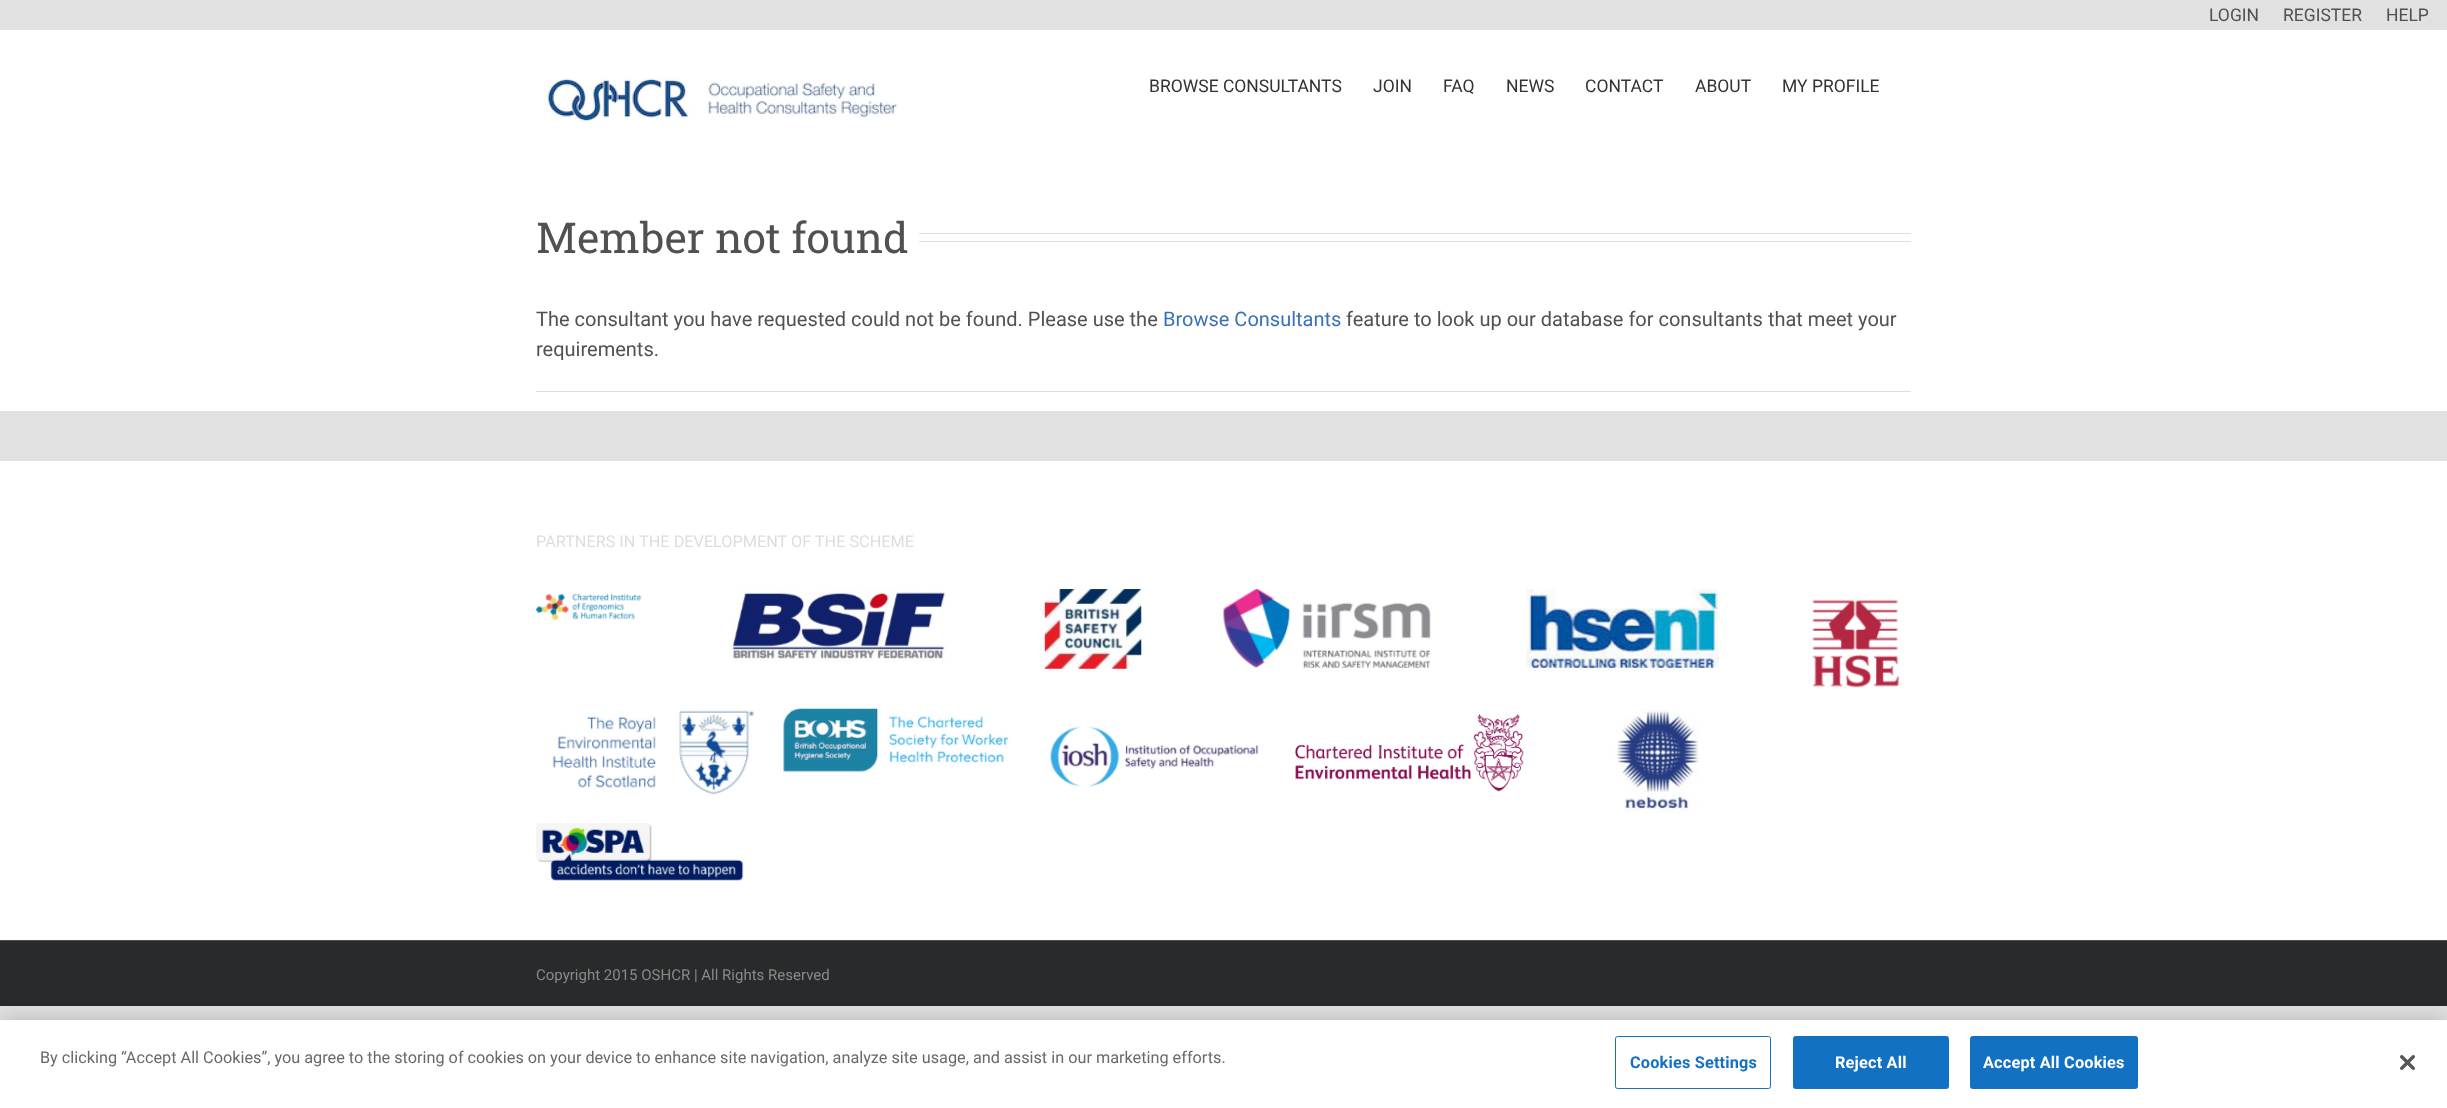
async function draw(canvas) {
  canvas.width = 2447
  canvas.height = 1108
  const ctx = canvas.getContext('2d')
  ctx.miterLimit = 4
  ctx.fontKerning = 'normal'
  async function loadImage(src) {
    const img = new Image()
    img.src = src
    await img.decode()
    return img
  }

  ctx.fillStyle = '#e1e1e1'
  ctx.fillRect(0, 0, 2447, 1108)
  ctx.font = '17.5px Roboto'
  ctx.fillStyle = '#515151'
  ctx.fillText('LOGIN', 2209, 21)
  ctx.fillText('REGISTER', 2283, 21)
  ctx.fillText('HELP', 2386, 21)
  ctx.fillStyle = '#fff'
  ctx.fillRect(0, 30, 2447, 381)
  ctx.drawImage(await loadImage('image0.png'), 547, 78, 351, 44)
  ctx.fillStyle = '#333'
  ctx.fillText('BROWSE CONSULTANTS', 1149, 92)
  ctx.fillText('JOIN', 1373, 92)
  ctx.fillText('FAQ', 1443, 92)
  ctx.fillText('NEWS', 1506, 92)
  ctx.fillText('CONTACT', 1585, 92)
  ctx.fillText('ABOUT', 1695, 92)
  ctx.fillText('MY PROFILE', 1782, 92)
  ctx.font = '42.5px Roboto Slab'
  ctx.fillStyle = '#515151'
  ctx.fillText('Member not found', 536, 253)
  ctx.fillStyle = '#e0dede'
  ctx.fillRect(919, 233, 992, 1)
  ctx.fillRect(919, 241, 992, 1)
  ctx.font = '20px Roboto'
  ctx.fillStyle = '#515151'
  ctx.fillText('The consultant you have requested could not be found. Please use the', 536, 326)
  ctx.fillStyle = '#3971b8'
  ctx.fillText('Browse Consultants', 1163, 326)
  ctx.fillStyle = '#515151'
  ctx.fillText('feature to look up our database for consultants that meet your', 1346, 326)
  ctx.fillText('requirements.', 536, 356)
  ctx.fillStyle = '#e0dede'
  ctx.fillRect(536, 391, 1375, 1)
  ctx.fillStyle = '#fff'
  ctx.fillRect(0, 461, 2447, 479)
  ctx.font = '16.25px Roboto'
  ctx.fillStyle = '#ddd'
  ctx.fillText('PARTNERS IN THE DEVELOPMENT OF THE SCHEME', 536, 547)
  ctx.drawImage(await loadImage('image1.png'), 536, 593, 106, 28)
  ctx.drawImage(await loadImage('image2.png'), 729, 589, 218, 73)
  ctx.drawImage(await loadImage('image3.png'), 1044, 589, 98, 80)
  ctx.drawImage(await loadImage('image4.png'), 1223, 589, 208, 79)
  ctx.drawImage(await loadImage('image5.png'), 1526, 589, 194, 82)
  ctx.drawImage(await loadImage('image6.png'), 1812, 599, 88, 89)
  ctx.drawImage(await loadImage('image7.png'), 552, 710, 203, 85)
  ctx.drawImage(await loadImage('image8.png'), 783, 708, 226, 64)
  ctx.drawImage(await loadImage('image9.png'), 1050, 726, 209, 61)
  ctx.drawImage(await loadImage('image10.png'), 1295, 714, 229, 78)
  ctx.drawImage(await loadImage('image11.png'), 1613, 709, 86, 104)
  ctx.drawImage(await loadImage('image12.png'), 536, 823, 208, 58)
  ctx.fillStyle = '#282a2b'
  ctx.fillRect(0, 941, 2447, 65)
  ctx.fillStyle = '#4b4c4d'
  ctx.fillRect(0, 940, 2447, 1)
  ctx.font = '15px Roboto'
  ctx.fillStyle = '#8c8989'
  ctx.fillText('Copyright 2015 OSHCR | All Rights Reserved', 536, 980)
  ctx.fillStyle = '#00000033'
  ctx.filter = 'blur(11px)'
  ctx.beginPath()
  ctx.rect(0, 1020, 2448, 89)
  ctx.fill()
  ctx.filter = 'none'
  ctx.fillStyle = '#fff'
  ctx.fillRect(0, 1020, 2447, 88)
  ctx.font = '16.25px Roboto'
  ctx.fillStyle = '#696969'
  ctx.fillText('By clicking “Accept All Cookies”, you agree to the storing of cookies on your device to enhance site navigation, analyze site usage, and assist in our marketing efforts.', 40, 1063)
  ctx.beginPath()
  ctx.roundRect(1615.5, 1036.5, 155, 52, 2)
  ctx.strokeStyle = '#1371c3'
  ctx.stroke()
  ctx.letterSpacing = '0.2px'
  ctx.font = 'bold 16.25px Roboto'
  ctx.fillStyle = '#1371c3'
  ctx.fillText('Cookies Settings', 1630, 1068)
  ctx.beginPath()
  ctx.roundRect(1793.5, 1036.5, 155, 52, 2)
  ctx.fill()
  ctx.stroke()
  ctx.fillStyle = '#fff'
  ctx.fillText('Reject All', 1835, 1068)
  ctx.fillStyle = '#1371c3'
  ctx.beginPath()
  ctx.roundRect(1970.5, 1036.5, 167, 52, 2)
  ctx.fill()
  ctx.stroke()
  ctx.fillStyle = '#fff'
  ctx.fillText('Accept All Cookies', 1983, 1068)
  ctx.drawImage(await loadImage('image13.png'), 2400, 1055, 15, 15)
}

draw(document.querySelector('canvas'))
